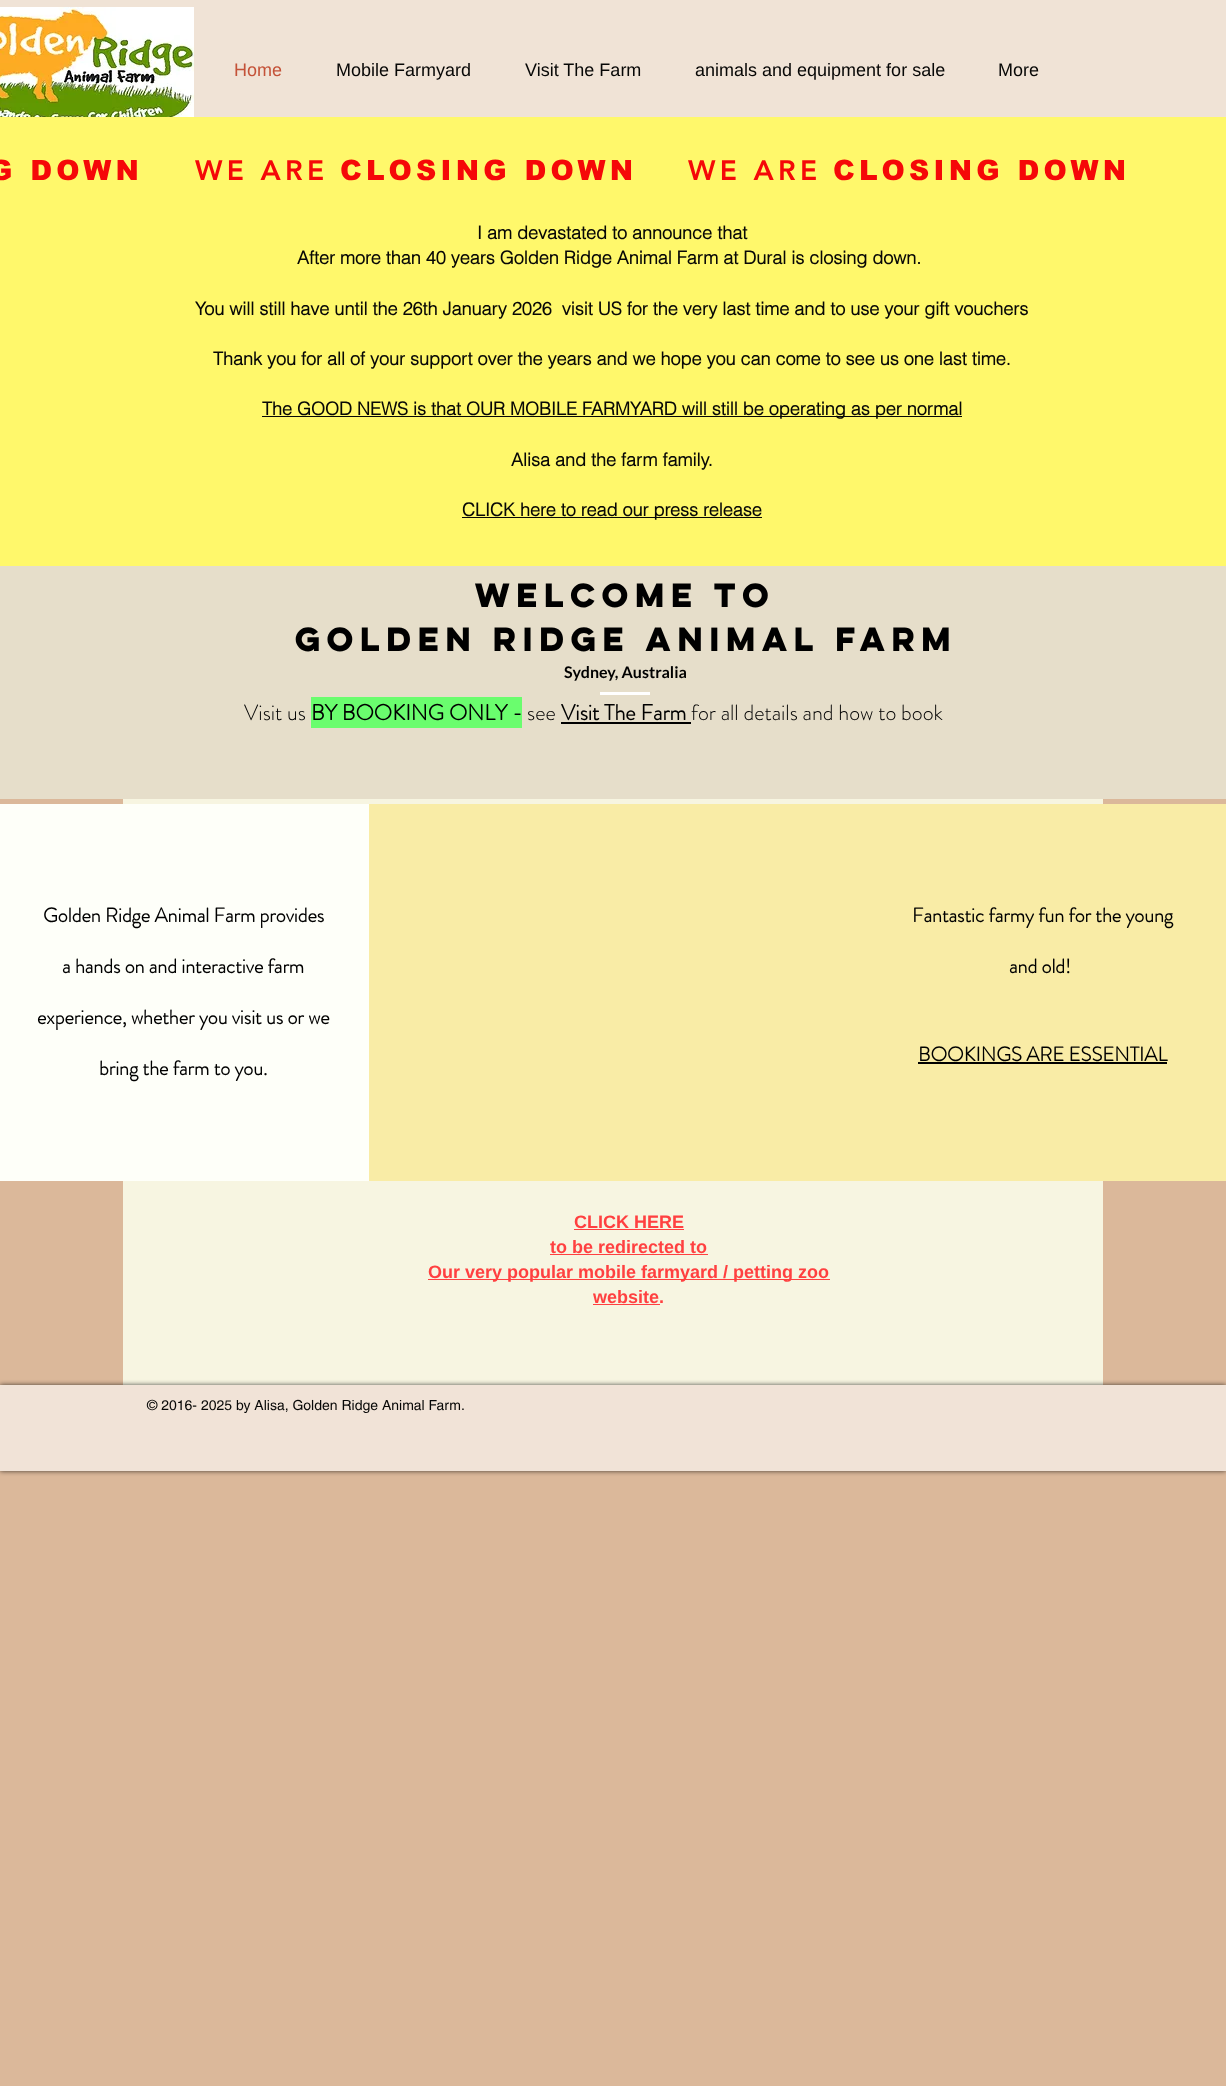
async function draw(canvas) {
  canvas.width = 1226
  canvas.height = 2086
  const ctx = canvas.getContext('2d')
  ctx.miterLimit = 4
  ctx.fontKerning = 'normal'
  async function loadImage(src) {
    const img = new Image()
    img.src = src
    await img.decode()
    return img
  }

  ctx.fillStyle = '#dbb89a'
  ctx.fillRect(0, 0, 1226, 2086)
  ctx.fillStyle = '#f0e3d6'
  ctx.fillRect(0, 0, 1226, 117)
  ctx.drawImage(await loadImage('image0.png'), 0, 7, 194, 110)
  ctx.font = '18px Liberation Sans'
  ctx.fillStyle = '#c45238'
  ctx.fillText('Home', 234, 76)
  ctx.fillStyle = '#070706'
  ctx.fillText('Mobile Farmyard', 336, 76)
  ctx.fillText('Visit The Farm', 525, 76)
  ctx.fillText('animals and equipment for sale', 695, 76)
  ctx.fillText('More', 998, 76)
  ctx.fillStyle = '#fff86b'
  ctx.fillRect(0, 117, 1226, 449)
  ctx.letterSpacing = '4.25px'
  ctx.font = '900 28px arial'
  ctx.fillStyle = '#f50808'
  ctx.fillText('G DOWN', -11, 180)
  ctx.font = '900 28px "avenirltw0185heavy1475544"'
  ctx.fillText('WE ARE', 195, 180)
  ctx.font = '900 28px arial'
  ctx.fillText('CLOSING DOWN', 340, 180)
  ctx.font = '900 28px "avenirltw0185heavy1475544"'
  ctx.fillText('WE ARE', 688, 180)
  ctx.font = '900 28px arial'
  ctx.fillText('CLOSING DOWN', 833, 180)
  ctx.letterSpacing = '0px'
  ctx.font = 'bold 18px helvetica'
  ctx.fillStyle = '#070706'
  ctx.fillText('I am devastated to announce that', 477, 239)
  ctx.fillText('After more than 40 years Golden Ridge Animal Farm at Dural is closing down.', 297, 264)
  ctx.fillText('You will still have until the 26th January 2026  visit US for the very last time and to use your gift vouchers', 195, 315)
  ctx.fillText('Thank you for all of your support over the years and we hope you can come to see us one last time.', 213, 365)
  ctx.fillRect(262, 416, 700, 1)
  ctx.fillText('The GOOD NEWS is that OUR MOBILE FARMYARD will still be operating as per normal', 262, 415)
  ctx.fillText('Alisa and the farm family.', 511, 466)
  ctx.fillRect(462, 517, 300, 1)
  ctx.fillText('CLICK here to read our press release', 462, 516)
  ctx.fillStyle = '#e6deca'
  ctx.fillRect(0, 566, 1226, 233)
  ctx.font = 'bold 30px "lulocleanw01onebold"'
  ctx.fillStyle = '#000'
  ctx.fillText('Welcome to', 475, 607)
  ctx.fillText('Golden ridge animal farm', 295, 651)
  ctx.font = 'bold 16px Lato'
  ctx.fillText('Sydney, Australia', 564, 678)
  ctx.fillStyle = '#fff'
  ctx.fillRect(600, 692, 50, 3)
  ctx.font = '300 22px "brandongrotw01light"'
  ctx.fillStyle = '#000'
  ctx.fillText('Visit us', 244, 720)
  ctx.fillStyle = '#6afd6e'
  ctx.fillRect(311, 697, 211, 31)
  ctx.font = 'bold 22px "brandongrotw01light"'
  ctx.fillStyle = '#000'
  ctx.fillText('BY BOOKING ONLY -', 311, 720)
  ctx.font = '300 22px "brandongrotw01light"'
  ctx.fillText('see', 527, 720)
  ctx.fillRect(561, 722, 130, 2)
  ctx.font = 'bold 22px "brandongrotw01light"'
  ctx.fillText('Visit The Farm', 561, 720)
  ctx.font = '300 22px "brandongrotw01light"'
  ctx.fillText('for all details and how to book', 691, 720)
  ctx.fillStyle = '#f7f5e1'
  ctx.fillRect(123, 799, 980, 586)
  ctx.fillStyle = '#fefff9'
  ctx.fillRect(0, 804, 369, 377)
  ctx.font = 'bold 20px "brandongrotw01light"'
  ctx.fillStyle = '#000'
  ctx.fillText('Golden Ridge Animal Farm provides', 43, 922)
  ctx.fillText('a hands on and interactive farm', 62, 973)
  ctx.fillText('experience, whether you visit us or we', 37, 1024)
  ctx.fillText('bring the farm to you.', 99, 1075)
  ctx.fillStyle = '#f9eca6'
  ctx.fillRect(369, 804, 857, 377)
  ctx.fillStyle = '#000'
  ctx.fillText('Fantastic farmy fun for the young', 912, 922)
  ctx.fillText('and old!', 1009, 973)
  ctx.fillText('BOOKINGS ARE ESSENTIAL', 918, 1061)
  ctx.fillRect(918, 1062, 249, 2)
  ctx.font = 'bold 18px Liberation Sans'
  ctx.fillStyle = '#ff4040'
  ctx.fillText('CLICK HERE', 574, 1228)
  ctx.fillRect(574, 1229, 110, 1)
  ctx.fillText('to be redirected to', 550, 1253)
  ctx.fillRect(550, 1254, 158, 1)
  ctx.fillRect(428, 1279, 402, 1)
  ctx.fillText('Our very popular mobile farmyard / petting zoo', 428, 1278)
  ctx.fillText('website.', 593, 1303)
  ctx.fillRect(593, 1304, 67, 1)
  ctx.fillStyle = '#000000b3'
  ctx.filter = 'blur(2.5px)'
  ctx.beginPath()
  ctx.rect(0, 1385, 1226, 86)
  ctx.fill()
  ctx.filter = 'none'
  ctx.fillStyle = '#f1e3d7'
  ctx.fillRect(0, 1385, 1226, 86)
  ctx.font = '14px helvetica'
  ctx.fillStyle = '#070706'
  ctx.fillText('© 2016- 2025 by Alisa, Golden Ridge Animal Farm.', 147, 1410)
}

draw(document.querySelector('canvas'))
